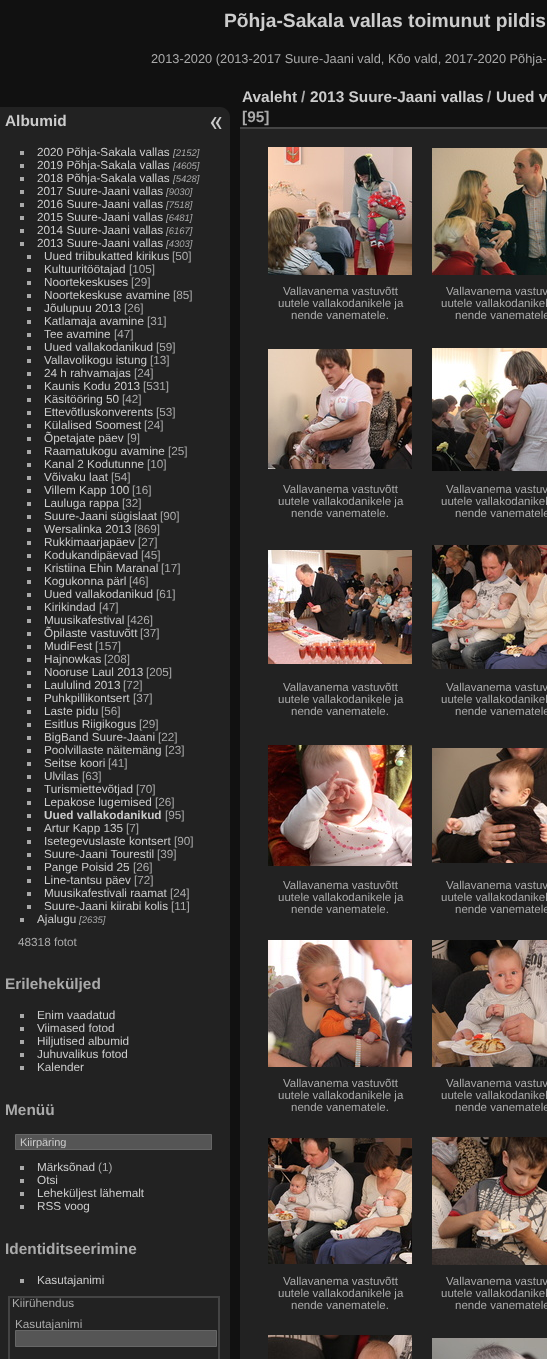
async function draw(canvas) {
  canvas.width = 547
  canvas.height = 1359
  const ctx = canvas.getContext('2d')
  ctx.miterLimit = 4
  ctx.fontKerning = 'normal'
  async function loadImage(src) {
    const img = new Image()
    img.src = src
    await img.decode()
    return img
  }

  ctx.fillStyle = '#111'
  ctx.fillRect(0, 0, 547, 1359)
  ctx.font = 'bold 19.25px Liberation Sans'
  ctx.fillStyle = '#ccc'
  ctx.fillText('Põhja-Sakala vallas toimunut pildis', 224, 27)
  ctx.font = '12.8px Liberation Sans'
  ctx.fillStyle = '#aaa'
  ctx.fillText('2013-2020 (2013-2017 Suure-Jaani vald, Kõo vald, 2017-2020 Põhja-', 151, 63)
  ctx.fillStyle = '#222'
  ctx.beginPath()
  ctx.moveTo(0, 107)
  ctx.lineTo(220, 107)
  ctx.bezierCurveTo(225.5, 107, 230, 111.5, 230, 117)
  ctx.lineTo(230, 1359)
  ctx.bezierCurveTo(230, 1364.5, 225.5, 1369, 220, 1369)
  ctx.lineTo(0, 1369)
  ctx.closePath()
  ctx.fill()
  ctx.font = 'bold 15.4px Liberation Sans'
  ctx.fillStyle = '#ccc'
  ctx.fillText('Albumid', 5, 126)
  ctx.fillStyle = '#aaa'
  ctx.fillRect(20, 151, 4, 4)
  ctx.font = '11.75px Liberation Sans'
  ctx.fillStyle = '#ccc'
  ctx.fillText('2020 Põhja-Sakala vallas', 37, 156)
  ctx.font = 'italic 9.5px Liberation Sans'
  ctx.fillStyle = '#aaa'
  ctx.fillText('[2152]', 173, 156)
  ctx.fillRect(20, 164, 4, 4)
  ctx.font = '11.75px Liberation Sans'
  ctx.fillStyle = '#ccc'
  ctx.fillText('2019 Põhja-Sakala vallas', 37, 169)
  ctx.font = 'italic 9.5px Liberation Sans'
  ctx.fillStyle = '#aaa'
  ctx.fillText('[4605]', 173, 169)
  ctx.fillRect(20, 177, 4, 4)
  ctx.font = '11.75px Liberation Sans'
  ctx.fillStyle = '#ccc'
  ctx.fillText('2018 Põhja-Sakala vallas', 37, 182)
  ctx.font = 'italic 9.5px Liberation Sans'
  ctx.fillStyle = '#aaa'
  ctx.fillText('[5428]', 173, 182)
  ctx.fillRect(20, 190, 4, 4)
  ctx.font = '11.75px Liberation Sans'
  ctx.fillStyle = '#ccc'
  ctx.fillText('2017 Suure-Jaani vallas', 37, 195)
  ctx.font = 'italic 9.5px Liberation Sans'
  ctx.fillStyle = '#aaa'
  ctx.fillText('[9030]', 166, 195)
  ctx.fillRect(20, 203, 4, 4)
  ctx.font = '11.75px Liberation Sans'
  ctx.fillStyle = '#ccc'
  ctx.fillText('2016 Suure-Jaani vallas', 37, 208)
  ctx.font = 'italic 9.5px Liberation Sans'
  ctx.fillStyle = '#aaa'
  ctx.fillText('[7518]', 166, 208)
  ctx.fillRect(20, 216, 4, 4)
  ctx.font = '11.75px Liberation Sans'
  ctx.fillStyle = '#ccc'
  ctx.fillText('2015 Suure-Jaani vallas', 37, 221)
  ctx.font = 'italic 9.5px Liberation Sans'
  ctx.fillStyle = '#aaa'
  ctx.fillText('[6481]', 166, 221)
  ctx.fillRect(20, 229, 4, 4)
  ctx.font = '11.75px Liberation Sans'
  ctx.fillStyle = '#ccc'
  ctx.fillText('2014 Suure-Jaani vallas', 37, 234)
  ctx.font = 'italic 9.5px Liberation Sans'
  ctx.fillStyle = '#aaa'
  ctx.fillText('[6167]', 166, 234)
  ctx.fillRect(20, 242, 4, 4)
  ctx.font = '11.75px Liberation Sans'
  ctx.fillStyle = '#ccc'
  ctx.fillText('2013 Suure-Jaani vallas', 37, 247)
  ctx.font = 'italic 9.5px Liberation Sans'
  ctx.fillStyle = '#aaa'
  ctx.fillText('[4303]', 166, 247)
  ctx.fillRect(27, 255, 4, 4)
  ctx.font = '11.75px Liberation Sans'
  ctx.fillStyle = '#ccc'
  ctx.fillText('Uued triibukatted kirikus', 44, 260)
  ctx.fillStyle = '#aaa'
  ctx.fillText('[50]', 172, 260)
  ctx.fillRect(27, 268, 4, 4)
  ctx.fillStyle = '#ccc'
  ctx.fillText('Kultuuritöötajad', 44, 273)
  ctx.fillStyle = '#aaa'
  ctx.fillText('[105]', 129, 273)
  ctx.fillRect(27, 281, 4, 4)
  ctx.fillStyle = '#ccc'
  ctx.fillText('Noortekeskuses', 44, 286)
  ctx.fillStyle = '#aaa'
  ctx.fillText('[29]', 131, 286)
  ctx.fillRect(27, 294, 4, 4)
  ctx.fillStyle = '#ccc'
  ctx.fillText('Noortekeskuse avamine', 44, 299)
  ctx.fillStyle = '#aaa'
  ctx.fillText('[85]', 173, 299)
  ctx.fillRect(27, 307, 4, 4)
  ctx.fillStyle = '#ccc'
  ctx.fillText('Jõulupuu 2013', 44, 312)
  ctx.fillStyle = '#aaa'
  ctx.fillText('[26]', 124, 312)
  ctx.fillRect(27, 320, 4, 4)
  ctx.fillStyle = '#ccc'
  ctx.fillText('Katlamaja avamine', 44, 325)
  ctx.fillStyle = '#aaa'
  ctx.fillText('[31]', 147, 325)
  ctx.fillRect(27, 333, 4, 4)
  ctx.fillStyle = '#ccc'
  ctx.fillText('Tee avamine', 44, 338)
  ctx.fillStyle = '#aaa'
  ctx.fillText('[47]', 114, 338)
  ctx.fillRect(27, 346, 4, 4)
  ctx.fillStyle = '#ccc'
  ctx.fillText('Uued vallakodanikud', 44, 351)
  ctx.fillStyle = '#aaa'
  ctx.fillText('[59]', 156, 351)
  ctx.fillRect(27, 359, 4, 4)
  ctx.fillStyle = '#ccc'
  ctx.fillText('Vallavolikogu istung', 44, 364)
  ctx.fillStyle = '#aaa'
  ctx.fillText('[13]', 150, 364)
  ctx.fillRect(27, 372, 4, 4)
  ctx.fillStyle = '#ccc'
  ctx.fillText('24 h rahvamajas', 44, 377)
  ctx.fillStyle = '#aaa'
  ctx.fillText('[24]', 134, 377)
  ctx.fillRect(27, 385, 4, 4)
  ctx.fillStyle = '#ccc'
  ctx.fillText('Kaunis Kodu 2013', 44, 390)
  ctx.fillStyle = '#aaa'
  ctx.fillText('[531]', 143, 390)
  ctx.fillRect(27, 398, 4, 4)
  ctx.fillStyle = '#ccc'
  ctx.fillText('Käsitööring 50', 44, 403)
  ctx.fillStyle = '#aaa'
  ctx.fillText('[42]', 122, 403)
  ctx.fillRect(27, 411, 4, 4)
  ctx.fillStyle = '#ccc'
  ctx.fillText('Ettevõtluskonverents', 44, 416)
  ctx.fillStyle = '#aaa'
  ctx.fillText('[53]', 156, 416)
  ctx.fillRect(27, 424, 4, 4)
  ctx.fillStyle = '#ccc'
  ctx.fillText('Külalised Soomest', 44, 429)
  ctx.fillStyle = '#aaa'
  ctx.fillText('[24]', 144, 429)
  ctx.fillRect(27, 437, 4, 4)
  ctx.fillStyle = '#ccc'
  ctx.fillText('Õpetajate päev', 44, 442)
  ctx.fillStyle = '#aaa'
  ctx.fillText('[9]', 127, 442)
  ctx.fillRect(27, 450, 4, 4)
  ctx.fillStyle = '#ccc'
  ctx.fillText('Raamatukogu avamine', 44, 455)
  ctx.fillStyle = '#aaa'
  ctx.fillText('[25]', 168, 455)
  ctx.fillRect(27, 463, 4, 4)
  ctx.fillStyle = '#ccc'
  ctx.fillText('Kanal 2 Kodutunne', 44, 468)
  ctx.fillStyle = '#aaa'
  ctx.fillText('[10]', 147, 468)
  ctx.fillRect(27, 476, 4, 4)
  ctx.fillStyle = '#ccc'
  ctx.fillText('Võivaku laat', 44, 481)
  ctx.fillStyle = '#aaa'
  ctx.fillText('[54]', 111, 481)
  ctx.fillRect(27, 489, 4, 4)
  ctx.fillStyle = '#ccc'
  ctx.fillText('Villem Kapp 100', 44, 494)
  ctx.fillStyle = '#aaa'
  ctx.fillText('[16]', 132, 494)
  ctx.fillRect(27, 502, 4, 4)
  ctx.fillStyle = '#ccc'
  ctx.fillText('Lauluga rappa', 44, 507)
  ctx.fillStyle = '#aaa'
  ctx.fillText('[32]', 122, 507)
  ctx.fillRect(27, 515, 4, 4)
  ctx.fillStyle = '#ccc'
  ctx.fillText('Suure-Jaani sügislaat', 44, 520)
  ctx.fillStyle = '#aaa'
  ctx.fillText('[90]', 160, 520)
  ctx.fillRect(27, 528, 4, 4)
  ctx.fillStyle = '#ccc'
  ctx.fillText('Wersalinka 2013', 44, 533)
  ctx.fillStyle = '#aaa'
  ctx.fillText('[869]', 134, 533)
  ctx.fillRect(27, 541, 4, 4)
  ctx.fillStyle = '#ccc'
  ctx.fillText('Rukkimaarjapäev', 44, 546)
  ctx.fillStyle = '#aaa'
  ctx.fillText('[27]', 138, 546)
  ctx.fillRect(27, 554, 4, 4)
  ctx.fillStyle = '#ccc'
  ctx.fillText('Kodukandipäevad', 44, 559)
  ctx.fillStyle = '#aaa'
  ctx.fillText('[45]', 141, 559)
  ctx.fillRect(27, 567, 4, 4)
  ctx.fillStyle = '#ccc'
  ctx.fillText('Kristiina Ehin Maranal', 44, 572)
  ctx.fillStyle = '#aaa'
  ctx.fillText('[17]', 161, 572)
  ctx.fillRect(27, 580, 4, 4)
  ctx.fillStyle = '#ccc'
  ctx.fillText('Kogukonna pärl', 44, 585)
  ctx.fillStyle = '#aaa'
  ctx.fillText('[46]', 129, 585)
  ctx.fillRect(27, 593, 4, 4)
  ctx.fillStyle = '#ccc'
  ctx.fillText('Uued vallakodanikud', 44, 598)
  ctx.fillStyle = '#aaa'
  ctx.fillText('[61]', 156, 598)
  ctx.fillRect(27, 606, 4, 4)
  ctx.fillStyle = '#ccc'
  ctx.fillText('Kirikindad', 44, 611)
  ctx.fillStyle = '#aaa'
  ctx.fillText('[47]', 99, 611)
  ctx.fillRect(27, 619, 4, 4)
  ctx.fillStyle = '#ccc'
  ctx.fillText('Muusikafestival', 44, 624)
  ctx.fillStyle = '#aaa'
  ctx.fillText('[426]', 127, 624)
  ctx.fillRect(27, 632, 4, 4)
  ctx.fillStyle = '#ccc'
  ctx.fillText('Õpilaste vastuvõtt', 44, 637)
  ctx.fillStyle = '#aaa'
  ctx.fillText('[37]', 140, 637)
  ctx.fillRect(27, 645, 4, 4)
  ctx.fillStyle = '#ccc'
  ctx.fillText('MudiFest', 44, 650)
  ctx.fillStyle = '#aaa'
  ctx.fillText('[157]', 95, 650)
  ctx.fillRect(27, 658, 4, 4)
  ctx.fillStyle = '#ccc'
  ctx.fillText('Hajnowkas', 44, 663)
  ctx.fillStyle = '#aaa'
  ctx.fillText('[208]', 104, 663)
  ctx.fillRect(27, 671, 4, 4)
  ctx.fillStyle = '#ccc'
  ctx.fillText('Nooruse Laul 2013', 44, 676)
  ctx.fillStyle = '#aaa'
  ctx.fillText('[205]', 146, 676)
  ctx.fillRect(27, 684, 4, 4)
  ctx.fillStyle = '#ccc'
  ctx.fillText('Laululind 2013', 44, 689)
  ctx.fillStyle = '#aaa'
  ctx.fillText('[72]', 123, 689)
  ctx.fillRect(27, 697, 4, 4)
  ctx.fillStyle = '#ccc'
  ctx.fillText('Puhkpillikontsert', 44, 702)
  ctx.fillStyle = '#aaa'
  ctx.fillText('[37]', 133, 702)
  ctx.fillRect(27, 710, 4, 4)
  ctx.fillStyle = '#ccc'
  ctx.fillText('Laste pidu', 44, 715)
  ctx.fillStyle = '#aaa'
  ctx.fillText('[56]', 101, 715)
  ctx.fillRect(27, 723, 4, 4)
  ctx.fillStyle = '#ccc'
  ctx.fillText('Esitlus Riigikogus', 44, 728)
  ctx.fillStyle = '#aaa'
  ctx.fillText('[29]', 139, 728)
  ctx.fillRect(27, 736, 4, 4)
  ctx.fillStyle = '#ccc'
  ctx.fillText('BigBand Suure-Jaani', 44, 741)
  ctx.fillStyle = '#aaa'
  ctx.fillText('[22]', 158, 741)
  ctx.fillRect(27, 749, 4, 4)
  ctx.fillStyle = '#ccc'
  ctx.fillText('Poolvillaste näitemäng', 44, 754)
  ctx.fillStyle = '#aaa'
  ctx.fillText('[23]', 165, 754)
  ctx.fillRect(27, 762, 4, 4)
  ctx.fillStyle = '#ccc'
  ctx.fillText('Seitse koori', 44, 767)
  ctx.fillStyle = '#aaa'
  ctx.fillText('[41]', 108, 767)
  ctx.fillRect(27, 775, 4, 4)
  ctx.fillStyle = '#ccc'
  ctx.fillText('Ulvilas', 44, 780)
  ctx.fillStyle = '#aaa'
  ctx.fillText('[63]', 82, 780)
  ctx.fillRect(27, 788, 4, 4)
  ctx.fillStyle = '#ccc'
  ctx.fillText('Turismiettevõtjad', 44, 793)
  ctx.fillStyle = '#aaa'
  ctx.fillText('[70]', 136, 793)
  ctx.fillRect(27, 801, 4, 4)
  ctx.fillStyle = '#ccc'
  ctx.fillText('Lepakose lugemised', 44, 806)
  ctx.fillStyle = '#aaa'
  ctx.fillText('[26]', 155, 806)
  ctx.fillRect(27, 814, 4, 4)
  ctx.font = 'bold 11.75px Liberation Sans'
  ctx.fillStyle = '#ccc'
  ctx.fillText('Uued vallakodanikud', 44, 819)
  ctx.font = '11.75px Liberation Sans'
  ctx.fillStyle = '#aaa'
  ctx.fillText('[95]', 165, 819)
  ctx.fillRect(27, 827, 4, 4)
  ctx.fillStyle = '#ccc'
  ctx.fillText('Artur Kapp 135', 44, 832)
  ctx.fillStyle = '#aaa'
  ctx.fillText('[7]', 126, 832)
  ctx.fillRect(27, 840, 4, 4)
  ctx.fillStyle = '#ccc'
  ctx.fillText('Isetegevuslaste kontsert', 44, 845)
  ctx.fillStyle = '#aaa'
  ctx.fillText('[90]', 174, 845)
  ctx.fillRect(27, 853, 4, 4)
  ctx.fillStyle = '#ccc'
  ctx.fillText('Suure-Jaani Tourestil', 44, 858)
  ctx.fillStyle = '#aaa'
  ctx.fillText('[39]', 157, 858)
  ctx.fillRect(27, 866, 4, 4)
  ctx.fillStyle = '#ccc'
  ctx.fillText('Pange Poisid 25', 44, 871)
  ctx.fillStyle = '#aaa'
  ctx.fillText('[26]', 133, 871)
  ctx.fillRect(27, 879, 4, 4)
  ctx.fillStyle = '#ccc'
  ctx.fillText('Line-tantsu päev', 44, 884)
  ctx.fillStyle = '#aaa'
  ctx.fillText('[72]', 134, 884)
  ctx.fillRect(27, 892, 4, 4)
  ctx.fillStyle = '#ccc'
  ctx.fillText('Muusikafestivali raamat', 44, 897)
  ctx.fillStyle = '#aaa'
  ctx.fillText('[24]', 170, 897)
  ctx.fillRect(27, 905, 4, 4)
  ctx.fillStyle = '#ccc'
  ctx.fillText('Suure-Jaani kiirabi kolis', 44, 910)
  ctx.fillStyle = '#aaa'
  ctx.fillText('[11]', 171, 910)
  ctx.fillRect(20, 918, 4, 4)
  ctx.fillStyle = '#ccc'
  ctx.fillText('Ajalugu', 37, 923)
  ctx.font = 'italic 9.5px Liberation Sans'
  ctx.fillStyle = '#aaa'
  ctx.fillText('[2635]', 79, 923)
  ctx.font = '11.75px Liberation Sans'
  ctx.fillText('48318 fotot', 18, 946)
  ctx.font = 'bold 15.4px Liberation Sans'
  ctx.fillText('Erileheküljed', 5, 989)
  ctx.fillRect(20, 1014, 4, 4)
  ctx.font = '11.75px Liberation Sans'
  ctx.fillStyle = '#ccc'
  ctx.fillText('Enim vaadatud', 37, 1019)
  ctx.fillStyle = '#aaa'
  ctx.fillRect(20, 1027, 4, 4)
  ctx.fillStyle = '#ccc'
  ctx.fillText('Viimased fotod', 37, 1032)
  ctx.fillStyle = '#aaa'
  ctx.fillRect(20, 1040, 4, 4)
  ctx.fillStyle = '#ccc'
  ctx.fillText('Hiljutised albumid', 37, 1045)
  ctx.fillStyle = '#aaa'
  ctx.fillRect(20, 1053, 4, 4)
  ctx.fillStyle = '#ccc'
  ctx.fillText('Juhuvalikus fotod', 37, 1058)
  ctx.fillStyle = '#aaa'
  ctx.fillRect(20, 1066, 4, 4)
  ctx.fillStyle = '#ccc'
  ctx.fillText('Kalender', 37, 1071)
  ctx.font = 'bold 15.4px Liberation Sans'
  ctx.fillStyle = '#aaa'
  ctx.fillText('Menüü', 5, 1115)
  ctx.fillStyle = '#555'
  ctx.beginPath()
  ctx.rect(15.5, 1134.5, 196, 15)
  ctx.fill()
  ctx.strokeStyle = '#666'
  ctx.stroke()
  ctx.save()
  ctx.beginPath()
  ctx.rect(18, 1136, 191, 12)
  ctx.clip()
  ctx.font = '11px Liberation Sans'
  ctx.fillStyle = '#ccc'
  ctx.fillText('Kiirpäring', 20, 1146)
  ctx.restore()
  ctx.fillStyle = '#aaa'
  ctx.fillRect(20, 1166, 4, 4)
  ctx.font = '11.75px Liberation Sans'
  ctx.fillStyle = '#ccc'
  ctx.fillText('Märksõnad', 37, 1171)
  ctx.fillStyle = '#aaa'
  ctx.fillText('(1)', 98, 1171)
  ctx.fillRect(20, 1179, 4, 4)
  ctx.fillStyle = '#ccc'
  ctx.fillText('Otsi', 37, 1184)
  ctx.fillStyle = '#aaa'
  ctx.fillRect(20, 1192, 4, 4)
  ctx.fillStyle = '#ccc'
  ctx.fillText('Leheküljest lähemalt', 37, 1197)
  ctx.fillStyle = '#aaa'
  ctx.fillRect(20, 1205, 4, 4)
  ctx.fillStyle = '#ccc'
  ctx.fillText('RSS voog', 37, 1210)
  ctx.font = 'bold 15.4px Liberation Sans'
  ctx.fillStyle = '#aaa'
  ctx.fillText('Identiditseerimine', 5, 1254)
  ctx.fillRect(20, 1279, 4, 4)
  ctx.font = '11.75px Liberation Sans'
  ctx.fillStyle = '#ccc'
  ctx.fillText('Kasutajanimi', 37, 1284)
  ctx.strokeStyle = '#444'
  ctx.lineWidth = 2
  ctx.strokeRect(9, 1297, 210, 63)
  ctx.fillStyle = '#aaa'
  ctx.fillText('Kiirühendus', 12, 1307)
  ctx.fillText('Kasutajanimi', 15, 1328)
  ctx.fillStyle = '#555'
  ctx.beginPath()
  ctx.rect(15.5, 1330.5, 201, 16)
  ctx.fill()
  ctx.strokeStyle = '#666'
  ctx.lineWidth = 1
  ctx.stroke()
  ctx.drawImage(await loadImage('image0.png'), 210, 117, 12, 12)
  ctx.fillStyle = '#222'
  ctx.fillRect(240, 129, 307, 1230)
  ctx.fillStyle = '#444'
  ctx.fillRect(240, 127, 307, 2)
  ctx.font = 'bold 15.4px Liberation Sans'
  ctx.fillStyle = '#ccc'
  ctx.fillText('Avaleht', 242, 102)
  ctx.fillStyle = '#aaa'
  ctx.fillText('/', 301, 102)
  ctx.fillStyle = '#ccc'
  ctx.fillText('2013 Suure-Jaani vallas', 310, 102)
  ctx.fillStyle = '#aaa'
  ctx.fillText('/', 487, 102)
  ctx.fillStyle = '#ccc'
  ctx.fillText('Uued v', 496, 102)
  ctx.fillStyle = '#aaa'
  ctx.fillText('[95]', 242, 122)
  ctx.drawImage(await loadImage('image1.png'), 268, 147, 144, 128)
  ctx.font = '11.5px Liberation Sans'
  ctx.fillText('Vallavanema vastuvõtt', 283, 295)
  ctx.fillText('uutele vallakodanikele ja', 278, 307)
  ctx.fillText('nende vanematele.', 291, 319)
  ctx.drawImage(await loadImage('image2.png'), 432, 148, 115, 127)
  ctx.fillText('Vallavanema vastuv', 446, 295)
  ctx.fillText('uutele vallakodanikel', 441, 307)
  ctx.fillText('nende vanematele', 455, 319)
  ctx.drawImage(await loadImage('image3.png'), 268, 349, 144, 120)
  ctx.fillText('Vallavanema vastuvõtt', 283, 493)
  ctx.fillText('uutele vallakodanikele ja', 278, 505)
  ctx.fillText('nende vanematele.', 291, 517)
  ctx.drawImage(await loadImage('image4.png'), 432, 348, 115, 123)
  ctx.fillText('Vallavanema vastuv', 446, 493)
  ctx.fillText('uutele vallakodanikel', 441, 505)
  ctx.fillText('nende vanematele', 455, 517)
  ctx.drawImage(await loadImage('image5.png'), 268, 550, 144, 114)
  ctx.fillText('Vallavanema vastuvõtt', 283, 691)
  ctx.fillText('uutele vallakodanikele ja', 278, 703)
  ctx.fillText('nende vanematele.', 291, 715)
  ctx.drawImage(await loadImage('image6.png'), 432, 545, 115, 124)
  ctx.fillText('Vallavanema vastuv', 446, 691)
  ctx.fillText('uutele vallakodanikel', 441, 703)
  ctx.fillText('nende vanematele', 455, 715)
  ctx.drawImage(await loadImage('image7.png'), 268, 745, 144, 121)
  ctx.fillText('Vallavanema vastuvõtt', 283, 889)
  ctx.fillText('uutele vallakodanikele ja', 278, 901)
  ctx.fillText('nende vanematele.', 291, 913)
  ctx.drawImage(await loadImage('image8.png'), 432, 748, 115, 115)
  ctx.fillText('Vallavanema vastuv', 446, 889)
  ctx.fillText('uutele vallakodanikel', 441, 901)
  ctx.fillText('nende vanematele', 455, 913)
  ctx.drawImage(await loadImage('image9.png'), 268, 940, 144, 127)
  ctx.fillText('Vallavanema vastuvõtt', 283, 1087)
  ctx.fillText('uutele vallakodanikele ja', 278, 1099)
  ctx.fillText('nende vanematele.', 291, 1111)
  ctx.drawImage(await loadImage('image10.png'), 432, 940, 115, 127)
  ctx.fillText('Vallavanema vastuv', 446, 1087)
  ctx.fillText('uutele vallakodanikel', 441, 1099)
  ctx.fillText('nende vanematele', 455, 1111)
  ctx.drawImage(await loadImage('image11.png'), 268, 1138, 144, 126)
  ctx.fillText('Vallavanema vastuvõtt', 283, 1285)
  ctx.fillText('uutele vallakodanikele ja', 278, 1297)
  ctx.fillText('nende vanematele.', 291, 1309)
  ctx.drawImage(await loadImage('image12.png'), 432, 1137, 115, 128)
  ctx.fillText('Vallavanema vastuv', 446, 1285)
  ctx.fillText('uutele vallakodanikel', 441, 1297)
  ctx.fillText('nende vanematele', 455, 1309)
  ctx.drawImage(await loadImage('image13.png'), 268, 1335, 144, 24)
  ctx.drawImage(await loadImage('image14.png'), 432, 1338, 115, 21)
}

draw(document.querySelector('canvas'))
